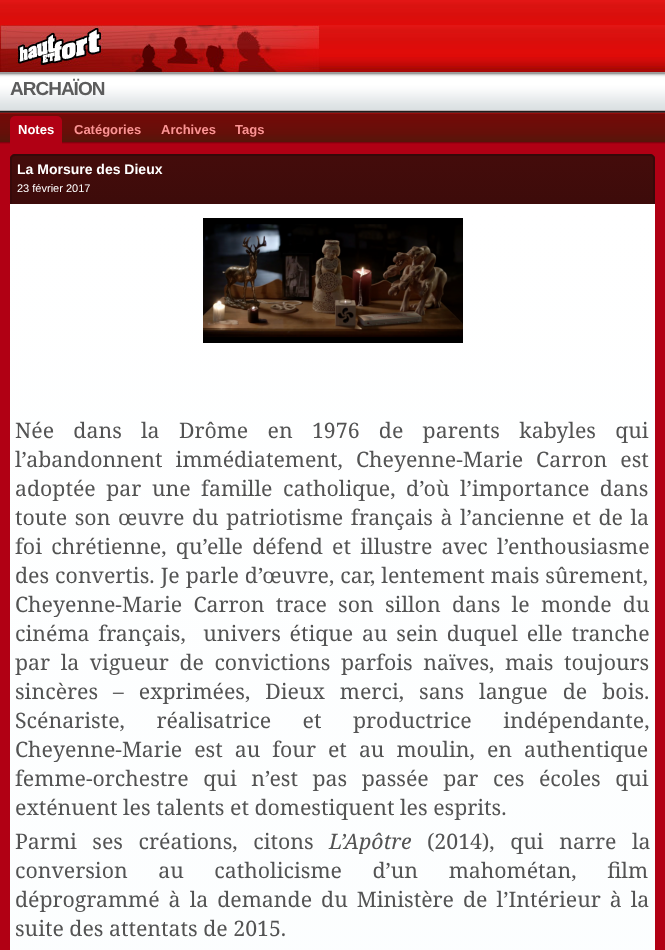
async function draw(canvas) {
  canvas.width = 665
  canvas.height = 950
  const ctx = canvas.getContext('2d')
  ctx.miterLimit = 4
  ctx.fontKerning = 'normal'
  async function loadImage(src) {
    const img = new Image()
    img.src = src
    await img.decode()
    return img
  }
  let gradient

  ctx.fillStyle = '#b10014'
  ctx.fillRect(0, 0, 665, 950)
  ctx.drawImage(await loadImage('image0.png'), 0, 0, 665, 25)
  ctx.drawImage(await loadImage('image1.png'), 320, 25, 345, 48)
  ctx.drawImage(await loadImage('image2.png'), 0, 25, 320, 48)
  ctx.drawImage(await loadImage('image3.png'), 0, 73, 665, 38)
  ctx.fillStyle = '#1e1e1e'
  ctx.fillRect(0, 111, 665, 1)
  ctx.letterSpacing = '-1px'
  ctx.font = 'bold 19px Liberation Sans'
  ctx.fillStyle = '#5c5c5c'
  ctx.fillText('ARCHAÏON', 10, 95)
  ctx.drawImage(await loadImage('image4.png'), 0, 112, 665, 32)
  ctx.fillStyle = '#b10014'
  ctx.beginPath()
  ctx.roundRect(10, 116, 52, 28, [5, 5, 0, 0])
  ctx.fill()
  ctx.letterSpacing = '0px'
  ctx.font = 'bold 13px Liberation Sans'
  ctx.fillStyle = '#fff'
  ctx.fillText('Notes', 18, 134)
  ctx.fillStyle = '#fb9494'
  ctx.fillText('Catégories', 74, 134)
  ctx.fillText('Archives', 161, 134)
  ctx.fillText('Tags', 235, 134)
  ctx.save()
  ctx.beginPath()
  ctx.roundRect(10, 154, 645, 50, [5, 5, 0, 0])
  ctx.clip()
  gradient = ctx.createLinearGradient(12, 156, 12, 204)
  gradient.addColorStop(0, '#440c0b')
  gradient.addColorStop(1, '#3d0b0a')
  ctx.fillStyle = gradient
  ctx.fillRect(10, 156, 645, 48)
  ctx.restore()
  ctx.fillStyle = '#360909'
  ctx.beginPath()
  ctx.moveTo(15, 154)
  ctx.lineTo(650, 154)
  ctx.bezierCurveTo(653, 154, 655, 156, 655, 159)
  ctx.lineTo(655, 204)
  ctx.lineTo(10, 204)
  ctx.lineTo(10, 159)
  ctx.bezierCurveTo(10, 156, 12, 154, 15, 154)
  ctx.closePath()
  ctx.moveTo(15, 156)
  ctx.lineTo(650, 156)
  ctx.bezierCurveTo(652, 156, 653, 157, 653, 159)
  ctx.lineTo(653, 204)
  ctx.lineTo(12, 204)
  ctx.lineTo(12, 159)
  ctx.bezierCurveTo(12, 157, 13, 156, 15, 156)
  ctx.closePath()
  ctx.fill('evenodd')
  ctx.font = 'bold 14px Liberation Sans'
  ctx.fillStyle = '#fff'
  ctx.fillText('La Morsure des Dieux', 17, 174)
  ctx.font = '11px Liberation Sans'
  ctx.fillText('23 février 2017', 17, 192)
  gradient = ctx.createLinearGradient(10, 204, 10, 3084)
  gradient.addColorStop(0, '#fff')
  gradient.addColorStop(1, '#f3fafc')
  ctx.fillStyle = gradient
  ctx.fillRect(10, 204, 645, 746)
  ctx.drawImage(await loadImage('image5.png'), 203, 218, 260, 125)
  ctx.wordSpacing = '13.75px'
  ctx.font = '21.3px Noto Serif'
  ctx.fillStyle = '#535353'
  ctx.fillText('Née dans la Drôme en 1976 de parents kabyles qui', 15, 438)
  ctx.wordSpacing = '7.5px'
  ctx.fillText('l’abandonnent immédiatement, Cheyenne-Marie Carron est', 15, 467)
  ctx.wordSpacing = '5px'
  ctx.fillText('adoptée par une famille catholique, d’où l’importance dans', 15, 496)
  ctx.wordSpacing = '2px'
  ctx.fillText('toute son œuvre du patriotisme français à l’ancienne et de la', 15, 525)
  ctx.wordSpacing = '3.75px'
  ctx.fillText('foi chrétienne, qu’elle défend et illustre avec l’enthousiasme', 15, 554)
  ctx.wordSpacing = '0.5px'
  ctx.fillText('des convertis. Je parle d’œuvre, car, lentement mais sûrement,', 15, 583)
  ctx.wordSpacing = '5.75px'
  ctx.fillText('Cheyenne-Marie Carron trace son sillon dans le monde du', 15, 612)
  ctx.wordSpacing = '3.25px'
  ctx.fillText('cinéma français,  univers étique au sein duquel elle tranche', 15, 641)
  ctx.wordSpacing = '5px'
  ctx.fillText('par la vigueur de convictions parfois naïves, mais toujours', 15, 670)
  ctx.wordSpacing = '9.5px'
  ctx.fillText('sincères – exprimées, Dieux merci, sans langue de bois.', 15, 699)
  ctx.wordSpacing = '26px'
  ctx.fillText('Scénariste, réalisatrice et productrice indépendante,', 15, 728)
  ctx.wordSpacing = '6.5px'
  ctx.fillText('Cheyenne-Marie est au four et au moulin, en authentique', 15, 757)
  ctx.wordSpacing = '9px'
  ctx.fillText('femme-orchestre qui n’est pas passée par ces écoles qui', 15, 786)
  ctx.wordSpacing = '0px'
  ctx.fillText('exténuent les talents et domestiquent les esprits.', 15, 815)
  ctx.wordSpacing = '10px'
  ctx.fillText('Parmi ses créations, citons', 15, 849)
  ctx.wordSpacing = '0px'
  ctx.font = 'italic 21.3px Noto Serif'
  ctx.fillText('L’Apôtre', 329, 849)
  ctx.wordSpacing = '10px'
  ctx.font = '21.3px Noto Serif'
  ctx.fillText('(2014), qui narre la', 427, 849)
  ctx.wordSpacing = '25px'
  ctx.fillText('conversion au catholicisme d’un mahométan, film', 15, 878)
  ctx.wordSpacing = '3.5px'
  ctx.fillText('déprogrammé à la demande du Ministère de l’Intérieur à la', 15, 907)
  ctx.wordSpacing = '0px'
  ctx.fillText('suite des attentats de 2015.', 15, 936)
}

draw(document.querySelector('canvas'))
